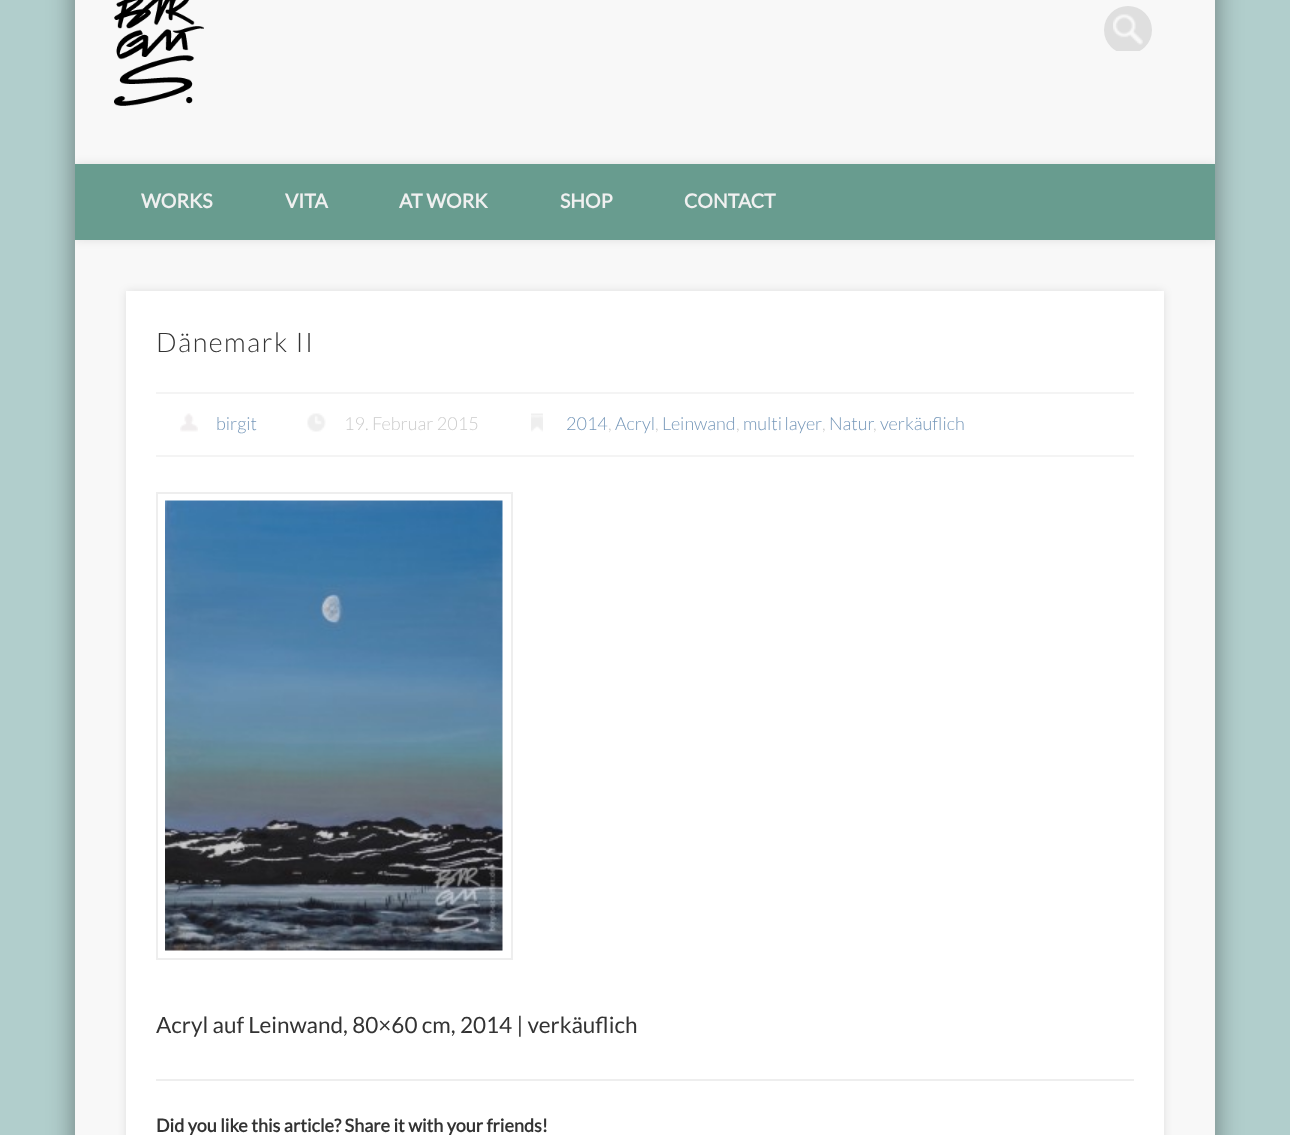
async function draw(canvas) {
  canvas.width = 1290
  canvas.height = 1135
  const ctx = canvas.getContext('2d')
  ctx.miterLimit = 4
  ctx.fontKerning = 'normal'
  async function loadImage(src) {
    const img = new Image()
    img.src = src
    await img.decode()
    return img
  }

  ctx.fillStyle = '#b1cecc'
  ctx.fillRect(0, 0, 1290, 1135)
  ctx.fillStyle = '#00000066'
  ctx.filter = 'blur(13.5px)'
  ctx.beginPath()
  ctx.rect(75, -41, 1140, 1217)
  ctx.fill()
  ctx.filter = 'none'
  ctx.fillStyle = '#f8f8f8'
  ctx.fillRect(75, 0, 1140, 1135)
  ctx.drawImage(await loadImage('image0.png'), 114, 0, 90, 106)
  ctx.save()
  ctx.beginPath()
  ctx.rect(474, 0, 702, 51)
  ctx.clip()
  ctx.fillStyle = '#dfdfdf'
  ctx.beginPath()
  ctx.arc(1128, 30, 24, 0, 2 * Math.PI)
  ctx.fill()
  ctx.restore()
  ctx.drawImage(await loadImage('image1.png'), 1113, 14, 30, 31)
  ctx.save()
  ctx.beginPath()
  ctx.rect(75, 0, 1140, 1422)
  ctx.clip()
  ctx.fillStyle = '#0000001a'
  ctx.filter = 'blur(5px)'
  ctx.beginPath()
  ctx.rect(75, 164, 1140, 76)
  ctx.fill()
  ctx.filter = 'none'
  ctx.restore()
  ctx.fillStyle = '#689c8f'
  ctx.fillRect(75, 164, 1140, 76)
  ctx.font = 'bold 19.5px Lato'
  ctx.fillStyle = '#f0f0f0'
  ctx.fillText('WORKS', 141, 208)
  ctx.fillText('VITA', 285, 208)
  ctx.fillText('AT WORK', 399, 208)
  ctx.fillText('SHOP', 560, 208)
  ctx.fillText('CONTACT', 684, 208)
  ctx.fillStyle = '#0000001a'
  ctx.filter = 'blur(4px)'
  ctx.beginPath()
  ctx.rect(126, 291, 1038, 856)
  ctx.fill()
  ctx.filter = 'none'
  ctx.fillStyle = '#fff'
  ctx.fillRect(126, 291, 1038, 844)
  ctx.letterSpacing = '1.5px'
  ctx.font = '300 27px Lato'
  ctx.fillStyle = '#333'
  ctx.fillText('Dänemark II', 156, 352)
  ctx.fillStyle = '#f4f4f4'
  ctx.fillRect(156, 392, 978, 2)
  ctx.fillRect(156, 455, 978, 2)
  ctx.drawImage(await loadImage('image2.png'), 180, 413, 18, 19)
  ctx.letterSpacing = '0px'
  ctx.font = '300 18px Lato'
  ctx.fillStyle = '#7597b9'
  ctx.fillText('birgit', 216, 430)
  ctx.drawImage(await loadImage('image3.png'), 307, 413, 19, 19)
  ctx.fillStyle = '#ccc'
  ctx.fillText('19. Februar 2015', 344, 430)
  ctx.drawImage(await loadImage('image4.png'), 531, 413, 12, 19)
  ctx.fillStyle = '#7597b9'
  ctx.fillText('2014', 566, 430)
  ctx.fillStyle = '#ccc'
  ctx.fillText(',', 608, 430)
  ctx.fillStyle = '#7597b9'
  ctx.fillText('Acryl', 615, 430)
  ctx.fillStyle = '#ccc'
  ctx.fillText(',', 655, 430)
  ctx.fillStyle = '#7597b9'
  ctx.fillText('Leinwand', 662, 430)
  ctx.fillStyle = '#ccc'
  ctx.fillText(',', 736, 430)
  ctx.wordSpacing = '-1px'
  ctx.fillStyle = '#7597b9'
  ctx.fillText('multi layer', 743, 430)
  ctx.wordSpacing = '0px'
  ctx.fillStyle = '#ccc'
  ctx.fillText(',', 822, 430)
  ctx.fillStyle = '#7597b9'
  ctx.fillText('Natur', 829, 430)
  ctx.fillStyle = '#ccc'
  ctx.fillText(',', 873, 430)
  ctx.fillStyle = '#7597b9'
  ctx.fillText('verkäuflich', 880, 430)
  ctx.strokeStyle = '#eee'
  ctx.lineWidth = 2
  ctx.strokeRect(157, 493, 355, 466)
  ctx.drawImage(await loadImage('image5.png'), 165, 500, 338, 451)
  ctx.font = '22.5px Lato'
  ctx.fillStyle = '#333'
  ctx.fillText('Acryl auf Leinwand, 80×60 cm, 2014 | verkäuflich', 156, 1033)
  ctx.fillStyle = '#eee'
  ctx.fillRect(156, 1079, 978, 2)
  ctx.font = 'bold 18px Lato'
  ctx.fillStyle = '#333'
  ctx.fillText('Did you like this article? Share it with your friends!', 156, 1132)
}

draw(document.querySelector('canvas'))
